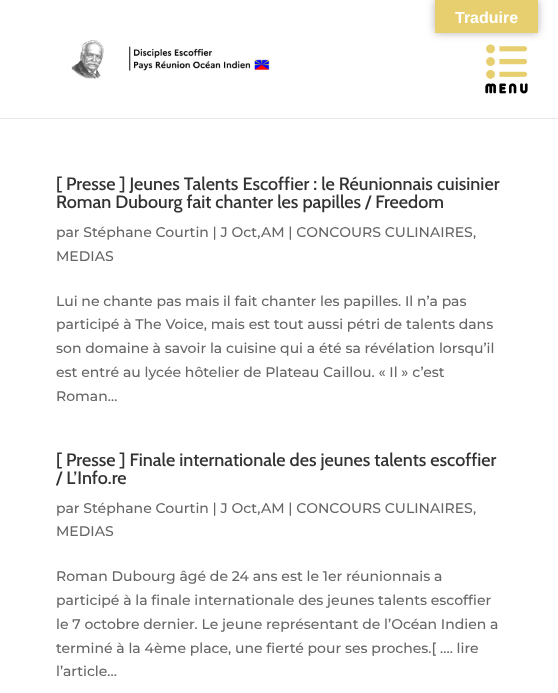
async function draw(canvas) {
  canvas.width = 558
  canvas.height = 693
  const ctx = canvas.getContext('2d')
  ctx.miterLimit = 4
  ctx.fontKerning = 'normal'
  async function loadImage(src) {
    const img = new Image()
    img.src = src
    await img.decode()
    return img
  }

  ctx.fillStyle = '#fff'
  ctx.fillRect(0, 0, 558, 693)
  ctx.drawImage(await loadImage('image1.png'), 485, 44, 43, 50)
  ctx.fillStyle = '#0000004d'
  ctx.filter = 'blur(4.5px)'
  ctx.beginPath()
  ctx.rect(435, 0, 103, 33)
  ctx.fill()
  ctx.filter = 'none'
  ctx.fillStyle = '#e7cf6f'
  ctx.fillRect(435, 0, 103, 33)
  ctx.font = 'bold 16px Liberation Sans'
  ctx.fillStyle = '#fff'
  ctx.fillText('Traduire', 455, 23)
  ctx.fillStyle = '#e6e6e6'
  ctx.fillRect(0, 118, 558, 1)
  ctx.drawImage(await loadImage('image0.png'), 71, 40, 199, 39)
  ctx.font = '500 18px Cabin'
  ctx.fillStyle = '#333'
  ctx.fillText('[ Presse ] Jeunes Talents Escoffier : le Réunionnais cuisinier', 56, 190)
  ctx.fillText('Roman Dubourg fait chanter les papilles / Freedom', 56, 208)
  ctx.font = '500 14px Montserrat'
  ctx.fillStyle = '#666'
  ctx.fillText('par Stéphane Courtin | J Oct,AM | CONCOURS CULINAIRES,', 56, 237)
  ctx.fillText('MEDIAS', 56, 261)
  ctx.fillText('Lui ne chante pas mais il fait chanter les papilles. Il n’a pas', 56, 306)
  ctx.fillText('participé à The Voice, mais est tout aussi pétri de talents dans', 56, 329)
  ctx.fillText('son domaine à savoir la cuisine qui a été sa révélation lorsqu’il', 56, 353)
  ctx.fillText('est entré au lycée hôtelier de Plateau Caillou. « Il » c’est', 56, 377)
  ctx.fillText('Roman...', 56, 401)
  ctx.font = '500 18px Cabin'
  ctx.fillStyle = '#333'
  ctx.fillText('[ Presse ] Finale internationale des jeunes talents escoffier', 56, 466)
  ctx.fillText('/ L’Info.re', 56, 484)
  ctx.font = '500 14px Montserrat'
  ctx.fillStyle = '#666'
  ctx.fillText('par Stéphane Courtin | J Oct,AM | CONCOURS CULINAIRES,', 56, 513)
  ctx.fillText('MEDIAS', 56, 536)
  ctx.fillText('Roman Dubourg âgé de 24 ans est le 1er réunionnais a', 56, 581)
  ctx.fillText('participé à la finale internationale des jeunes talents escoffier', 56, 605)
  ctx.fillText('le 7 octobre dernier. Le jeune représentant de l’Océan Indien a', 56, 629)
  ctx.fillText('terminé à la 4ème place, une fierté pour ses proches.[ …. lire', 56, 653)
  ctx.fillText('l’article...', 56, 676)
}

draw(document.querySelector('canvas'))
